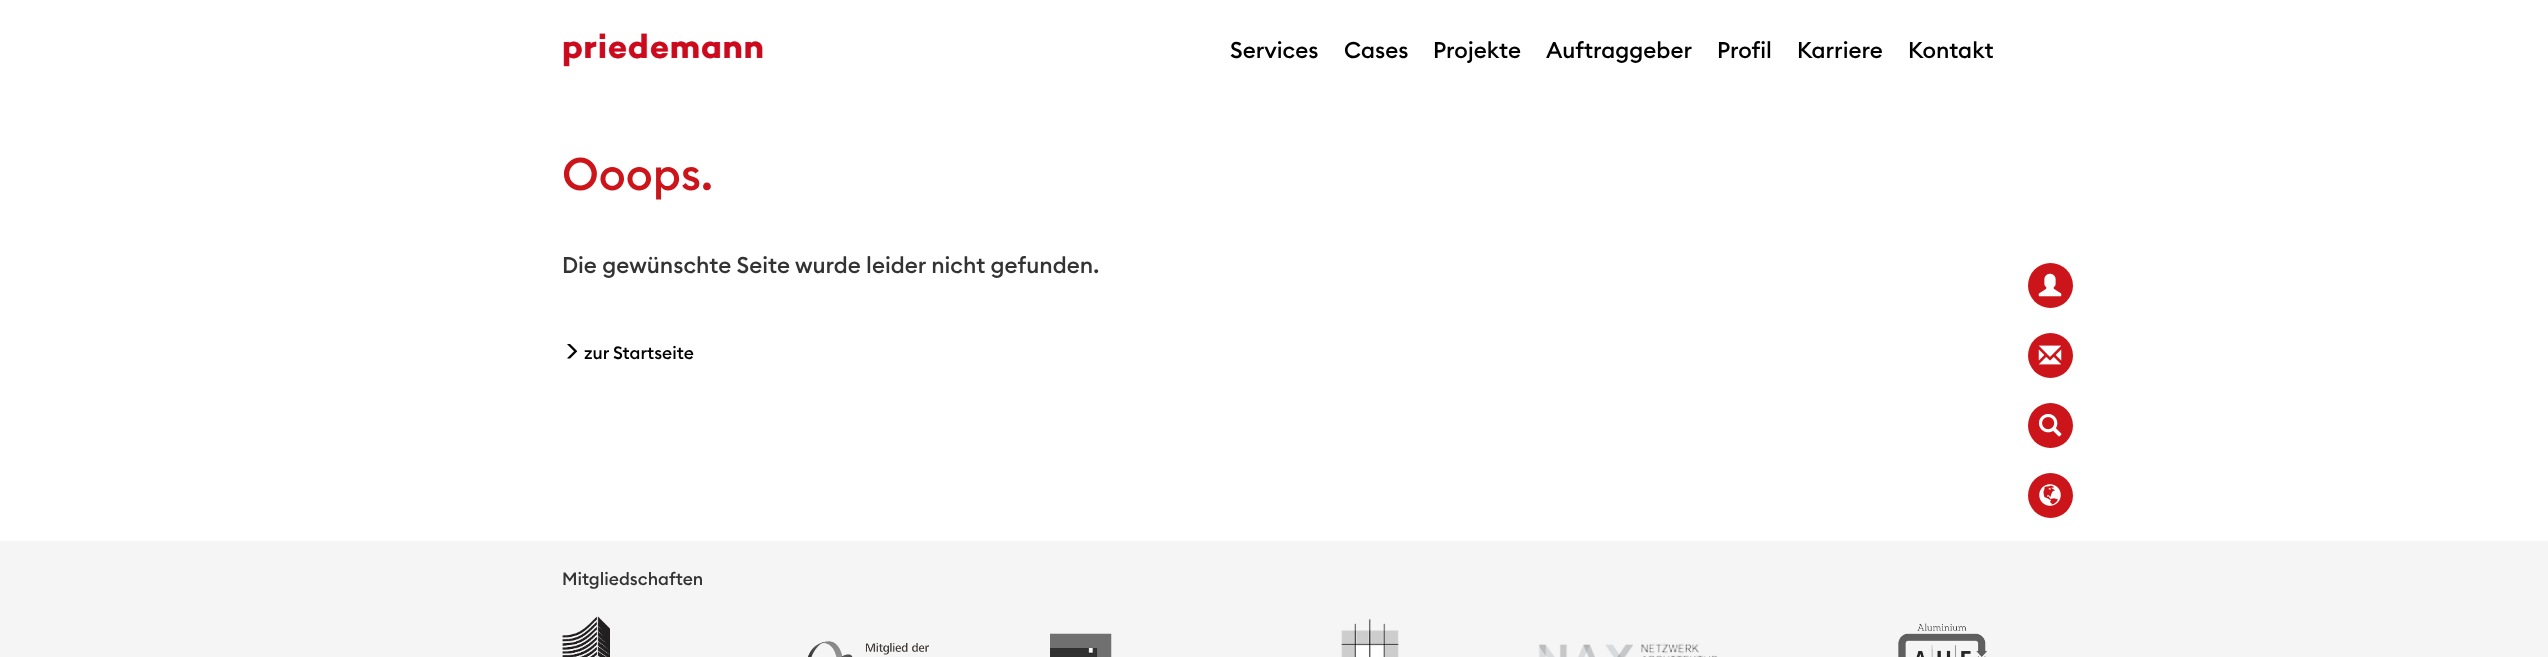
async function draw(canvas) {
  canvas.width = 2548
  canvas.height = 657
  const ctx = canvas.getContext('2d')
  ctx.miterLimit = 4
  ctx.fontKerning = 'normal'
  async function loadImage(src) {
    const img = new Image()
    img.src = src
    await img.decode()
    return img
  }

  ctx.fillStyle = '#fff'
  ctx.fillRect(0, 0, 2548, 657)
  ctx.drawImage(await loadImage('image0.png'), 563, 33, 200, 34)
  ctx.font = '500 22.5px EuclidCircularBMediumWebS'
  ctx.fillStyle = '#000'
  ctx.fillText('Services', 1230, 58)
  ctx.fillText('Cases', 1344, 58)
  ctx.fillText('Projekte', 1433, 58)
  ctx.fillText('Auftraggeber', 1546, 58)
  ctx.fillText('Profil', 1717, 58)
  ctx.fillText('Karriere', 1797, 58)
  ctx.fillText('Kontakt', 1908, 58)
  ctx.font = '500 45px EuclidCircularBMediumWebS'
  ctx.fillStyle = '#cc151a'
  ctx.fillText('Ooops.', 562, 190)
  ctx.font = '500 22.5px EuclidCircularBMediumWebS'
  ctx.fillStyle = '#333'
  ctx.fillText('Die gewünschte Seite wurde leider nicht gefunden.', 562, 273)
  ctx.drawImage(await loadImage('image1.png'), 567, 344, 11, 15)
  ctx.font = '500 17.5px EuclidCircularBMediumWebS'
  ctx.fillStyle = '#000'
  ctx.fillText('zur Startseite', 584, 359)
  ctx.fillStyle = '#f5f5f5'
  ctx.fillRect(0, 541, 2548, 116)
  ctx.fillStyle = '#333'
  ctx.fillText('Mitgliedschaften', 562, 585)
  ctx.drawImage(await loadImage('image2.png'), 562, 616, 48, 41)
  ctx.drawImage(await loadImage('image3.png'), 808, 641, 121, 16)
  ctx.drawImage(await loadImage('image4.png'), 1050, 633, 62, 24)
  ctx.drawImage(await loadImage('image5.png'), 1341, 618, 58, 39)
  ctx.drawImage(await loadImage('image6.png'), 1538, 643, 180, 14)
  ctx.drawImage(await loadImage('image7.png'), 1898, 623, 89, 34)
  ctx.fillStyle = '#cc151a'
  ctx.beginPath()
  ctx.arc(2050.5, 285.5, 22.5, 0, 2 * Math.PI)
  ctx.fill()
  ctx.drawImage(await loadImage('image8.png'), 2038, 273, 24, 24)
  ctx.beginPath()
  ctx.arc(2050.5, 355.5, 22.5, 0, 2 * Math.PI)
  ctx.fill()
  ctx.drawImage(await loadImage('image9.png'), 2038, 345, 24, 20)
  ctx.beginPath()
  ctx.arc(2050.5, 425.5, 22.5, 0, 2 * Math.PI)
  ctx.fill()
  ctx.drawImage(await loadImage('image10.png'), 2038, 413, 24, 24)
  ctx.beginPath()
  ctx.arc(2050.5, 495.5, 22.5, 0, 2 * Math.PI)
  ctx.fill()
  ctx.drawImage(await loadImage('image11.png'), 2039, 484, 22, 22)
}

draw(document.querySelector('canvas'))
